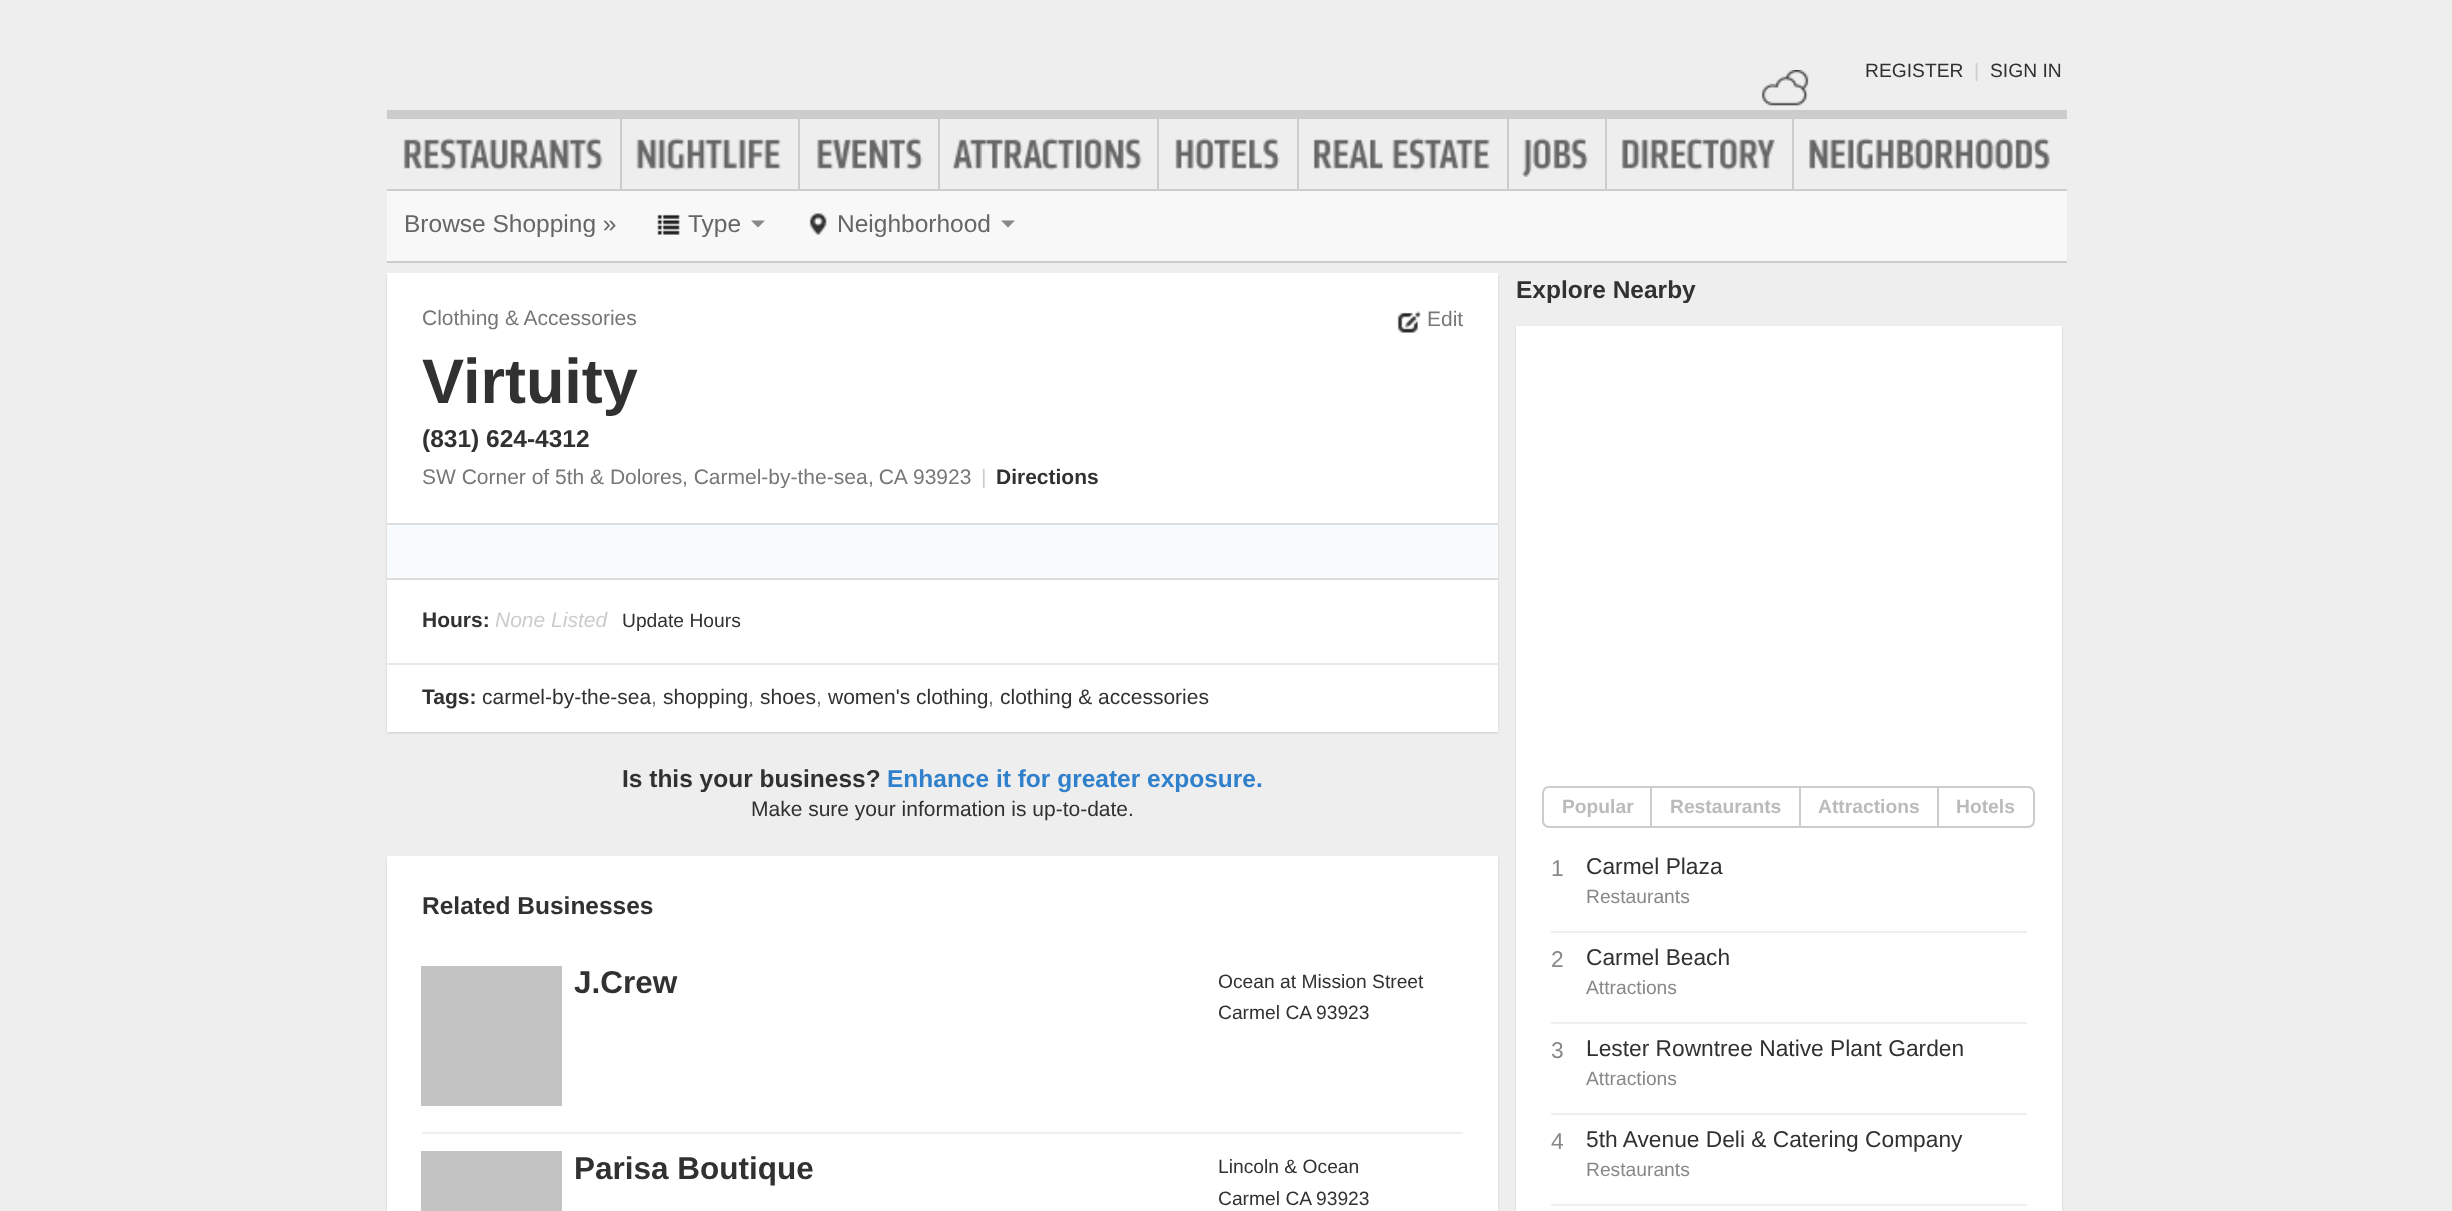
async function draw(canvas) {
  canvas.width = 2452
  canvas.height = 1211
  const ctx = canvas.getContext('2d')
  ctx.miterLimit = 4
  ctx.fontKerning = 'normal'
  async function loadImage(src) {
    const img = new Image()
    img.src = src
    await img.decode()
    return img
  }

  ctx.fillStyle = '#eee'
  ctx.fillRect(0, 0, 2452, 1211)
  ctx.drawImage(await loadImage('image0.png'), 1761, 70, 48, 36)
  ctx.font = '19.25px Liberation Sans'
  ctx.fillStyle = '#313131'
  ctx.fillText('REGISTER', 1865, 77)
  ctx.fillStyle = '#ccc'
  ctx.fillText('|', 1974, 77)
  ctx.fillStyle = '#313131'
  ctx.fillText('SIGN IN', 1990, 77)
  ctx.fillStyle = '#ccc'
  ctx.fillRect(387, 110, 1680, 9)
  ctx.fillRect(387, 189, 1680, 2)
  ctx.fillRect(620, 119, 2, 70)
  ctx.drawImage(await loadImage('image1.png'), 403, 138, 200, 33)
  ctx.fillRect(798, 119, 2, 70)
  ctx.drawImage(await loadImage('image2.png'), 636, 138, 145, 33)
  ctx.fillRect(938, 119, 2, 70)
  ctx.drawImage(await loadImage('image3.png'), 817, 138, 106, 33)
  ctx.fillRect(1157, 119, 2, 70)
  ctx.drawImage(await loadImage('image4.png'), 952, 138, 190, 33)
  ctx.fillRect(1297, 119, 2, 70)
  ctx.drawImage(await loadImage('image5.png'), 1175, 138, 105, 33)
  ctx.fillRect(1507, 119, 2, 70)
  ctx.drawImage(await loadImage('image6.png'), 1313, 138, 177, 33)
  ctx.fillRect(1605, 119, 2, 70)
  ctx.drawImage(await loadImage('image7.png'), 1522, 138, 66, 39)
  ctx.fillRect(1792, 119, 2, 70)
  ctx.drawImage(await loadImage('image8.png'), 1621, 138, 154, 33)
  ctx.drawImage(await loadImage('image9.png'), 1809, 138, 241, 33)
  ctx.fillStyle = '#f8f8f8'
  ctx.fillRect(387, 191, 1680, 70)
  ctx.fillStyle = '#cbcbcb'
  ctx.fillRect(387, 261, 1680, 2)
  ctx.font = '24.5px Liberation Sans'
  ctx.fillStyle = '#666'
  ctx.fillText('Browse Shopping »', 404, 232)
  ctx.drawImage(await loadImage('image10.png'), 657, 214, 23, 21)
  ctx.fillText('Type', 688, 232)
  ctx.fillStyle = '#888'
  ctx.beginPath()
  ctx.moveTo(751, 220.5)
  ctx.lineTo(765, 220.5)
  ctx.lineTo(758, 227.5)
  ctx.closePath()
  ctx.fill()
  ctx.drawImage(await loadImage('image11.png'), 809, 213, 18, 22)
  ctx.fillStyle = '#666'
  ctx.fillText('Neighborhood', 837, 232)
  ctx.fillStyle = '#888'
  ctx.beginPath()
  ctx.moveTo(1001, 220.5)
  ctx.lineTo(1015, 220.5)
  ctx.lineTo(1008, 227.5)
  ctx.closePath()
  ctx.fill()
  ctx.fillStyle = '#cbcbcb'
  ctx.filter = 'blur(1px)'
  ctx.beginPath()
  ctx.rect(387, 275, 1111, 458)
  ctx.fill()
  ctx.filter = 'none'
  ctx.fillStyle = '#fff'
  ctx.fillRect(387, 273, 1111, 459)
  ctx.font = '21px Liberation Sans'
  ctx.fillStyle = '#777'
  ctx.fillText('Clothing & Accessories', 422, 325)
  ctx.drawImage(await loadImage('image12.png'), 1397, 311, 24, 22)
  ctx.fillText('Edit', 1427, 326)
  ctx.font = 'bold 63px Liberation Sans'
  ctx.fillStyle = '#313131'
  ctx.fillText('Virtuity', 422, 403)
  ctx.font = 'bold 24.5px Liberation Sans'
  ctx.fillText('(831) 624-4312', 422, 447)
  ctx.font = '21px Liberation Sans'
  ctx.fillStyle = '#777'
  ctx.fillText('SW Corner of 5th & Dolores', 422, 484)
  ctx.save()
  ctx.beginPath()
  ctx.rect(422, 308, 1041, 180)
  ctx.clip()
  ctx.fillText(', Carmel-by-the-sea', 682, 484)
  ctx.restore()
  ctx.wordSpacing = '-1px'
  ctx.fillText(', CA', 868, 484)
  ctx.wordSpacing = '0px'
  ctx.fillText('93923', 913, 484)
  ctx.save()
  ctx.beginPath()
  ctx.rect(422, 308, 1041, 180)
  ctx.clip()
  ctx.fillStyle = '#ccc'
  ctx.fillText('|', 981, 484)
  ctx.restore()
  ctx.font = 'bold 21px Liberation Sans'
  ctx.fillStyle = '#313131'
  ctx.fillText('Directions', 996, 484)
  ctx.fillStyle = '#f8fcff'
  ctx.fillRect(387, 525, 1111, 53)
  ctx.fillStyle = '#ddd'
  ctx.fillRect(387, 523, 1111, 2)
  ctx.fillRect(387, 578, 1111, 2)
  ctx.fillStyle = '#313131'
  ctx.fillText('Hours:', 422, 627)
  ctx.font = 'italic 21px Liberation Sans'
  ctx.fillStyle = '#ccc'
  ctx.fillText('None Listed', 495, 627)
  ctx.font = '19.25px Liberation Sans'
  ctx.fillStyle = '#313131'
  ctx.fillText('Update Hours', 622, 627)
  ctx.fillStyle = '#eaeaea'
  ctx.fillRect(387, 663, 1111, 2)
  ctx.font = 'bold 21px Liberation Sans'
  ctx.fillStyle = '#313131'
  ctx.fillText('Tags:', 422, 704)
  ctx.font = '21px Liberation Sans'
  ctx.fillText('carmel-by-the-sea', 482, 704)
  ctx.fillStyle = '#777'
  ctx.fillText(',', 651, 704)
  ctx.fillStyle = '#313131'
  ctx.fillText('shopping', 663, 704)
  ctx.fillStyle = '#777'
  ctx.fillText(',', 748, 704)
  ctx.fillStyle = '#313131'
  ctx.fillText('shoes', 760, 704)
  ctx.fillStyle = '#777'
  ctx.fillText(',', 816, 704)
  ctx.fillStyle = '#313131'
  ctx.fillText('women\'s clothing', 828, 704)
  ctx.fillStyle = '#777'
  ctx.fillText(',', 988, 704)
  ctx.fillStyle = '#313131'
  ctx.fillText('clothing & accessories', 1000, 704)
  ctx.font = 'bold 24.5px Liberation Sans'
  ctx.fillText('Is this your business?', 622, 787)
  ctx.fillStyle = '#3080cb'
  ctx.fillText('Enhance it for greater exposure.', 887, 787)
  ctx.font = '21px Liberation Sans'
  ctx.fillStyle = '#313131'
  ctx.fillText('Make sure your information is up-to-date.', 751, 816)
  ctx.fillStyle = '#cbcbcb'
  ctx.filter = 'blur(1px)'
  ctx.beginPath()
  ctx.rect(387, 858, 1111, 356)
  ctx.fill()
  ctx.filter = 'none'
  ctx.fillStyle = '#fff'
  ctx.fillRect(387, 856, 1111, 355)
  ctx.font = 'bold 24.5px Liberation Sans'
  ctx.fillStyle = '#313131'
  ctx.fillText('Related Businesses', 422, 914)
  ctx.fillStyle = '#efefef'
  ctx.fillRect(422, 1132, 1041, 2)
  ctx.fillStyle = '#c3c3c3'
  ctx.fillRect(421, 966, 141, 140)
  ctx.font = 'bold 31.5px Liberation Sans'
  ctx.fillStyle = '#313131'
  ctx.fillText('J.Crew', 574, 993)
  ctx.font = '19.25px Liberation Sans'
  ctx.fillText('Ocean at Mission Street', 1218, 988)
  ctx.fillText('Carmel CA', 1218, 1019)
  ctx.fillText('93923', 1316, 1019)
  ctx.fillStyle = '#c3c3c3'
  ctx.fillRect(421, 1151, 141, 60)
  ctx.font = 'bold 31.5px Liberation Sans'
  ctx.fillStyle = '#313131'
  ctx.fillText('Parisa Boutique', 574, 1179)
  ctx.font = '19.25px Liberation Sans'
  ctx.fillText('Lincoln & Ocean', 1218, 1173)
  ctx.fillText('Carmel CA', 1218, 1205)
  ctx.fillText('93923', 1316, 1205)
  ctx.font = 'bold 24.5px Liberation Sans'
  ctx.fillText('Explore Nearby', 1516, 298)
  ctx.fillStyle = '#cbcbcb'
  ctx.filter = 'blur(1px)'
  ctx.beginPath()
  ctx.rect(1516, 327, 546, 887)
  ctx.fill()
  ctx.filter = 'none'
  ctx.fillStyle = '#fff'
  ctx.fillRect(1516, 326, 546, 885)
  ctx.beginPath()
  ctx.roundRect(1543, 787, 108, 40, [6, 0, 0, 6])
  ctx.strokeStyle = '#ccc'
  ctx.lineWidth = 2
  ctx.stroke()
  ctx.font = 'bold 19.25px Liberation Sans'
  ctx.fillStyle = '#bbb'
  ctx.fillText('Popular', 1562, 813)
  ctx.strokeRect(1651, 787, 149, 40)
  ctx.fillText('Restaurants', 1670, 813)
  ctx.strokeRect(1800, 787, 138, 40)
  ctx.fillText('Attractions', 1818, 813)
  ctx.beginPath()
  ctx.roundRect(1938, 787, 96, 40, [0, 6, 6, 0])
  ctx.stroke()
  ctx.fillText('Hotels', 1956, 813)
  ctx.fillStyle = '#efefef'
  ctx.fillRect(1551, 931, 476, 2)
  ctx.font = '22.75px Liberation Sans'
  ctx.fillStyle = '#888'
  ctx.fillText('1', 1551, 876)
  ctx.fillStyle = '#313131'
  ctx.fillText('Carmel Plaza', 1586, 874)
  ctx.font = '19.25px Liberation Sans'
  ctx.fillStyle = '#888'
  ctx.fillText('Restaurants', 1586, 903)
  ctx.fillStyle = '#efefef'
  ctx.fillRect(1551, 1022, 476, 2)
  ctx.font = '22.75px Liberation Sans'
  ctx.fillStyle = '#888'
  ctx.fillText('2', 1551, 967)
  ctx.fillStyle = '#313131'
  ctx.fillText('Carmel Beach', 1586, 965)
  ctx.font = '19.25px Liberation Sans'
  ctx.fillStyle = '#888'
  ctx.fillText('Attractions', 1586, 994)
  ctx.fillStyle = '#efefef'
  ctx.fillRect(1551, 1113, 476, 2)
  ctx.font = '22.75px Liberation Sans'
  ctx.fillStyle = '#888'
  ctx.fillText('3', 1551, 1058)
  ctx.fillStyle = '#313131'
  ctx.fillText('Lester Rowntree Native Plant Garden', 1586, 1056)
  ctx.font = '19.25px Liberation Sans'
  ctx.fillStyle = '#888'
  ctx.fillText('Attractions', 1586, 1085)
  ctx.fillStyle = '#efefef'
  ctx.fillRect(1551, 1204, 476, 2)
  ctx.font = '22.75px Liberation Sans'
  ctx.fillStyle = '#888'
  ctx.fillText('4', 1551, 1149)
  ctx.fillStyle = '#313131'
  ctx.fillText('5th Avenue Deli & Catering Company', 1586, 1147)
  ctx.font = '19.25px Liberation Sans'
  ctx.fillStyle = '#888'
  ctx.fillText('Restaurants', 1586, 1176)
}

draw(document.querySelector('canvas'))
